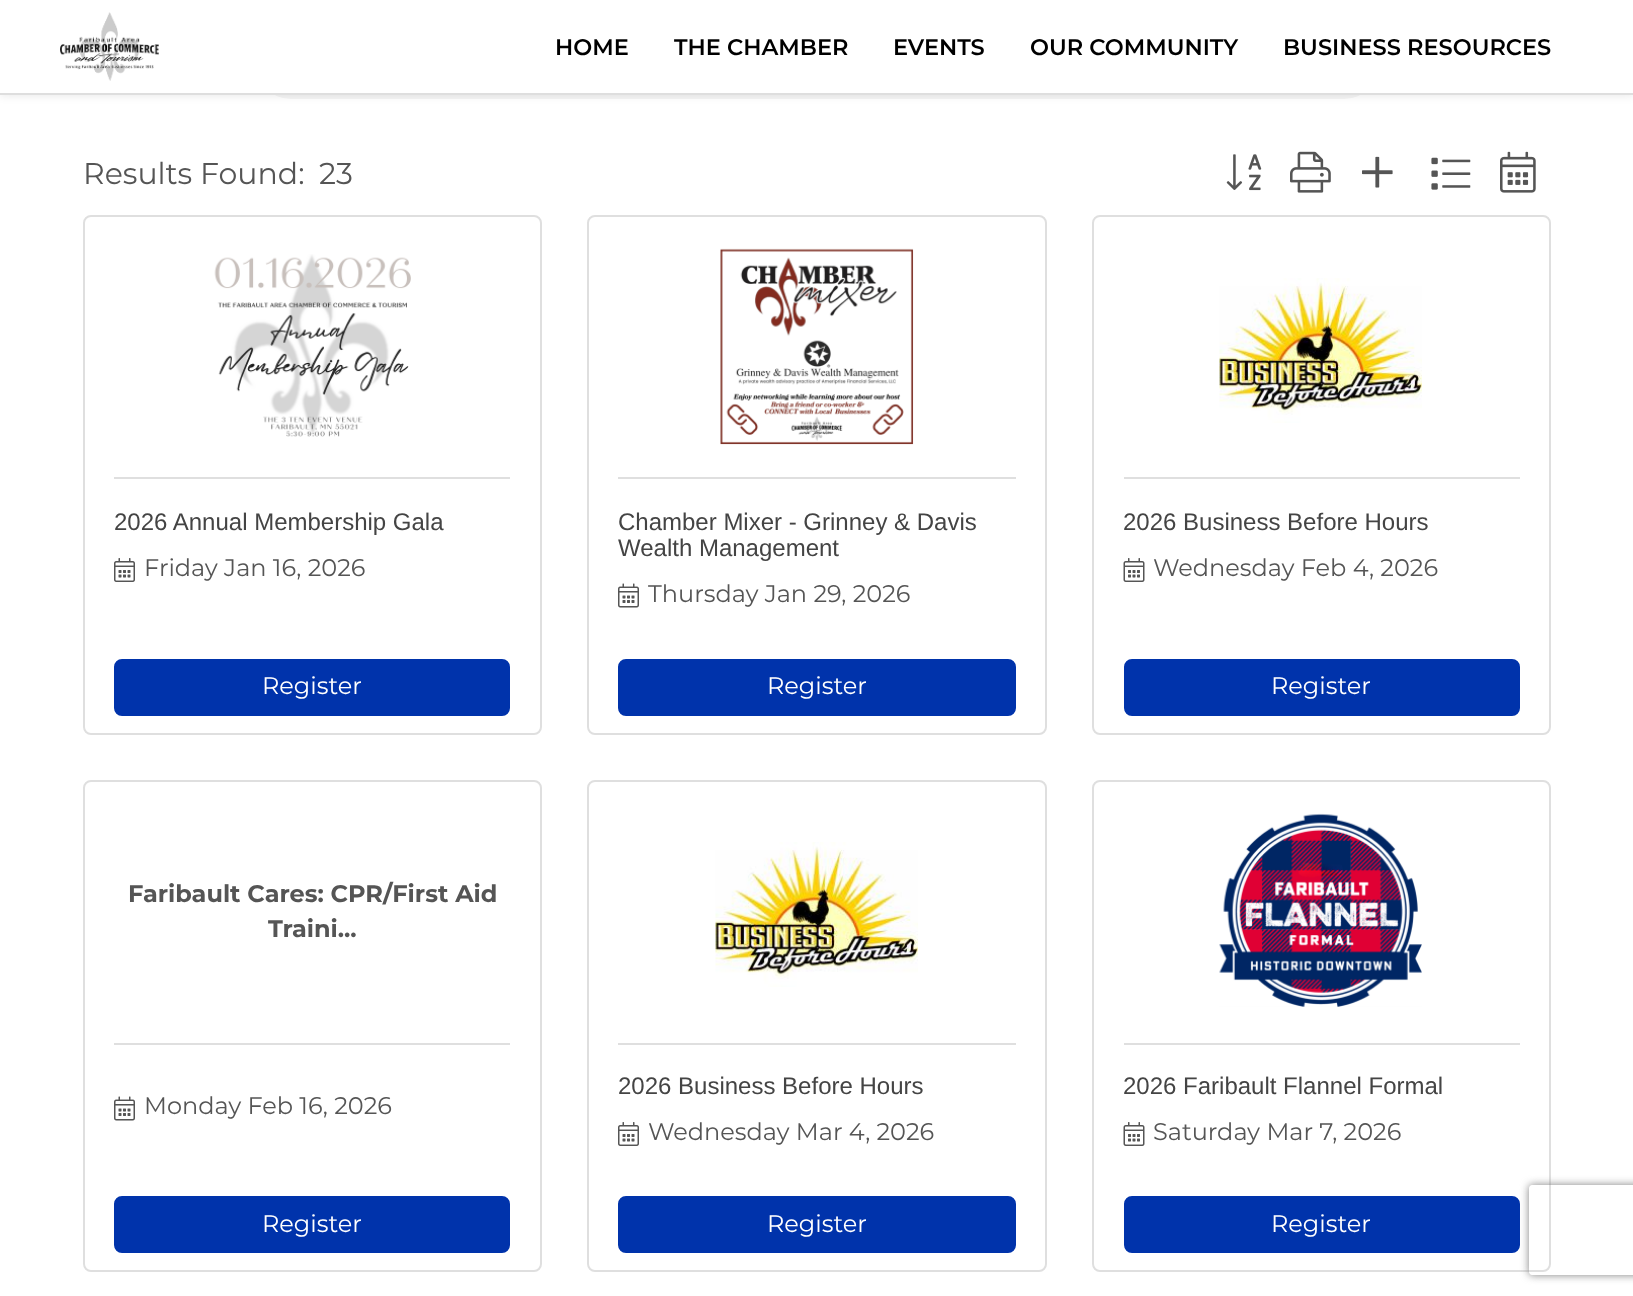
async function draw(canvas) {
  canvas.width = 1633
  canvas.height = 1296
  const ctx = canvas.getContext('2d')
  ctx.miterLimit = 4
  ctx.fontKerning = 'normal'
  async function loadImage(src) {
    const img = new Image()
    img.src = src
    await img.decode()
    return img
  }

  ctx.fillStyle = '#fff'
  ctx.fillRect(0, 0, 1633, 1296)
  ctx.fillStyle = '#f5f5f5'
  ctx.beginPath()
  ctx.roundRect(255, 27, 1125, 72, 36)
  ctx.fill()
  ctx.fillStyle = '#0000001a'
  ctx.filter = 'blur(5px)'
  ctx.beginPath()
  ctx.rect(0, 0, 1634, 95)
  ctx.fill()
  ctx.filter = 'none'
  ctx.fillStyle = '#fff'
  ctx.fillRect(0, 0, 1633, 93)
  ctx.fillStyle = '#dedede'
  ctx.fillRect(0, 93, 1633, 2)
  ctx.drawImage(await loadImage('image0.png'), 60, 12, 99, 69)
  ctx.font = '600 22.5px Montserrat'
  ctx.fillStyle = '#000'
  ctx.fillText('HOME', 555, 55)
  ctx.fillText('THE CHAMBER', 674, 55)
  ctx.fillText('EVENTS', 893, 55)
  ctx.fillText('OUR COMMUNITY', 1030, 55)
  ctx.fillText('BUSINESS RESOURCES', 1283, 55)
  ctx.font = '30px Montserrat'
  ctx.fillStyle = '#555'
  ctx.fillText('Results Found:', 83, 184)
  ctx.fillText('23', 319, 184)
  ctx.drawImage(await loadImage('image1.png'), 1226, 154, 36, 37)
  ctx.drawImage(await loadImage('image2.png'), 1290, 151, 41, 42)
  ctx.drawImage(await loadImage('image3.png'), 1362, 156, 31, 32)
  ctx.drawImage(await loadImage('image4.png'), 1431, 157, 40, 33)
  ctx.drawImage(await loadImage('image5.png'), 1500, 151, 36, 42)
  ctx.beginPath()
  ctx.roundRect(84, 216, 457, 518, 7)
  ctx.strokeStyle = '#dfdfdf'
  ctx.lineWidth = 2
  ctx.stroke()
  ctx.fillStyle = '#dfdfdf'
  ctx.fillRect(114, 477, 396, 2)
  ctx.drawImage(await loadImage('image6.png'), 214, 254, 197, 183)
  ctx.font = '24px Liberation Sans'
  ctx.fillStyle = '#444'
  ctx.fillText('2026 Annual Membership Gala', 114, 530)
  ctx.drawImage(await loadImage('image7.png'), 114, 558, 21, 24)
  ctx.font = '24px Montserrat'
  ctx.fillStyle = '#555'
  ctx.fillText('Friday Jan 16, 2026', 144, 576)
  ctx.fillStyle = '#0033ab'
  ctx.beginPath()
  ctx.roundRect(115, 660, 394, 55, 7)
  ctx.fill()
  ctx.strokeStyle = '#0033ab'
  ctx.stroke()
  ctx.fillStyle = '#fff'
  ctx.fillText('Register', 262, 694)
  ctx.beginPath()
  ctx.roundRect(588, 216, 458, 518, 7)
  ctx.strokeStyle = '#dfdfdf'
  ctx.stroke()
  ctx.fillStyle = '#dfdfdf'
  ctx.fillRect(618, 477, 398, 2)
  ctx.drawImage(await loadImage('image8.png'), 720, 248, 194, 197)
  ctx.font = '24px Liberation Sans'
  ctx.fillStyle = '#444'
  ctx.fillText('Chamber Mixer - Grinney & Davis', 618, 530)
  ctx.fillText('Wealth Management', 618, 556)
  ctx.drawImage(await loadImage('image9.png'), 618, 583, 21, 25)
  ctx.font = '24px Montserrat'
  ctx.fillStyle = '#555'
  ctx.fillText('Thursday Jan 29, 2026', 648, 602)
  ctx.fillStyle = '#0033ab'
  ctx.beginPath()
  ctx.roundRect(619, 660, 396, 55, 7)
  ctx.fill()
  ctx.strokeStyle = '#0033ab'
  ctx.stroke()
  ctx.fillStyle = '#fff'
  ctx.fillText('Register', 767, 694)
  ctx.beginPath()
  ctx.roundRect(1093, 216, 457, 518, 7)
  ctx.strokeStyle = '#dfdfdf'
  ctx.stroke()
  ctx.fillStyle = '#dfdfdf'
  ctx.fillRect(1124, 477, 396, 2)
  ctx.drawImage(await loadImage('image10.png'), 1219, 278, 203, 145)
  ctx.font = '24px Liberation Sans'
  ctx.fillStyle = '#444'
  ctx.fillText('2026 Business Before Hours', 1123, 530)
  ctx.drawImage(await loadImage('image11.png'), 1123, 558, 22, 24)
  ctx.font = '24px Montserrat'
  ctx.fillStyle = '#555'
  ctx.fillText('Wednesday Feb 4, 2026', 1153, 576)
  ctx.fillStyle = '#0033ab'
  ctx.beginPath()
  ctx.roundRect(1125, 660, 394, 55, 7)
  ctx.fill()
  ctx.strokeStyle = '#0033ab'
  ctx.stroke()
  ctx.fillStyle = '#fff'
  ctx.fillText('Register', 1271, 694)
  ctx.beginPath()
  ctx.roundRect(84, 781, 457, 490, 7)
  ctx.strokeStyle = '#dfdfdf'
  ctx.stroke()
  ctx.fillStyle = '#dfdfdf'
  ctx.fillRect(114, 1043, 396, 2)
  ctx.font = 'bold 24px Montserrat'
  ctx.fillStyle = '#555'
  ctx.fillText('Faribault Cares: CPR/First Aid', 128, 902)
  ctx.fillText('Traini...', 268, 937)
  ctx.drawImage(await loadImage('image9.png'), 114, 1096, 21, 25)
  ctx.font = '24px Montserrat'
  ctx.fillText('Monday Feb 16, 2026', 144, 1114)
  ctx.fillStyle = '#0033ab'
  ctx.beginPath()
  ctx.roundRect(115, 1197, 394, 55, 7)
  ctx.fill()
  ctx.strokeStyle = '#0033ab'
  ctx.stroke()
  ctx.fillStyle = '#fff'
  ctx.fillText('Register', 262, 1232)
  ctx.beginPath()
  ctx.roundRect(588, 781, 458, 490, 7)
  ctx.strokeStyle = '#dfdfdf'
  ctx.stroke()
  ctx.fillStyle = '#dfdfdf'
  ctx.fillRect(618, 1043, 398, 2)
  ctx.drawImage(await loadImage('image12.png'), 715, 842, 203, 145)
  ctx.font = '24px Liberation Sans'
  ctx.fillStyle = '#444'
  ctx.fillText('2026 Business Before Hours', 618, 1094)
  ctx.drawImage(await loadImage('image7.png'), 618, 1122, 21, 24)
  ctx.font = '24px Montserrat'
  ctx.fillStyle = '#555'
  ctx.fillText('Wednesday Mar 4, 2026', 648, 1140)
  ctx.fillStyle = '#0033ab'
  ctx.beginPath()
  ctx.roundRect(619, 1197, 396, 55, 7)
  ctx.fill()
  ctx.strokeStyle = '#0033ab'
  ctx.stroke()
  ctx.fillStyle = '#fff'
  ctx.fillText('Register', 767, 1232)
  ctx.beginPath()
  ctx.roundRect(1093, 781, 457, 490, 7)
  ctx.strokeStyle = '#dfdfdf'
  ctx.stroke()
  ctx.fillStyle = '#dfdfdf'
  ctx.fillRect(1124, 1043, 396, 2)
  ctx.drawImage(await loadImage('image13.png'), 1219, 813, 203, 194)
  ctx.font = '24px Liberation Sans'
  ctx.fillStyle = '#444'
  ctx.fillText('2026 Faribault Flannel Formal', 1123, 1094)
  ctx.drawImage(await loadImage('image11.png'), 1123, 1122, 22, 24)
  ctx.font = '24px Montserrat'
  ctx.fillStyle = '#555'
  ctx.fillText('Saturday Mar 7, 2026', 1153, 1140)
  ctx.fillStyle = '#0033ab'
  ctx.beginPath()
  ctx.roundRect(1125, 1197, 394, 55, 7)
  ctx.fill()
  ctx.strokeStyle = '#0033ab'
  ctx.stroke()
  ctx.fillStyle = '#fff'
  ctx.fillText('Register', 1271, 1232)
  ctx.save()
  ctx.beginPath()
  ctx.moveTo(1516, 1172)
  ctx.lineTo(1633, 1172)
  ctx.lineTo(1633, 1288)
  ctx.lineTo(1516, 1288)
  ctx.closePath()
  ctx.moveTo(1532, 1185)
  ctx.lineTo(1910, 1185)
  ctx.bezierCurveTo(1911.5, 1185, 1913, 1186.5, 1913, 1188)
  ctx.lineTo(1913, 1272)
  ctx.bezierCurveTo(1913, 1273.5, 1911.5, 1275, 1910, 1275)
  ctx.lineTo(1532, 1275)
  ctx.bezierCurveTo(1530.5, 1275, 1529, 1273.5, 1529, 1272)
  ctx.lineTo(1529, 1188)
  ctx.bezierCurveTo(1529, 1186.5, 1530.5, 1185, 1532, 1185)
  ctx.closePath()
  ctx.clip('evenodd')
  ctx.fillStyle = '#808080'
  ctx.filter = 'blur(4px)'
  ctx.beginPath()
  ctx.roundRect(1529, 1185, 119, 90, 3)
  ctx.fill()
  ctx.filter = 'none'
  ctx.restore()
}

draw(document.querySelector('canvas'))
